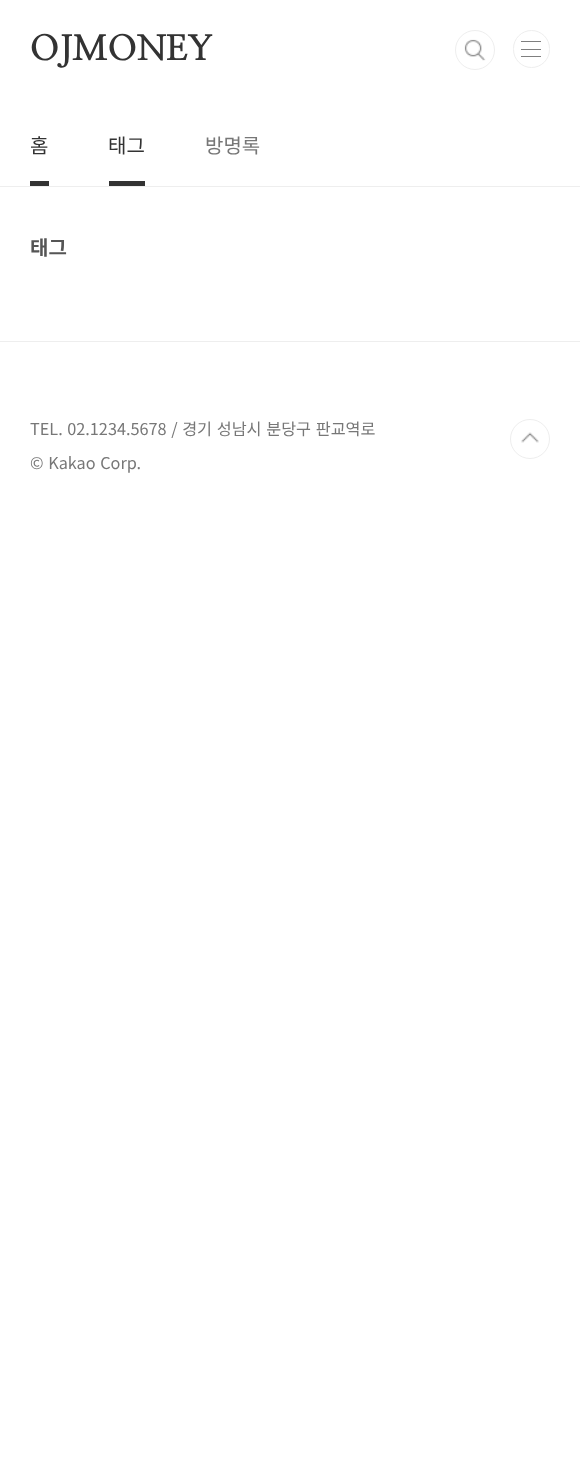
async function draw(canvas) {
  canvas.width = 580
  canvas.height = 1465
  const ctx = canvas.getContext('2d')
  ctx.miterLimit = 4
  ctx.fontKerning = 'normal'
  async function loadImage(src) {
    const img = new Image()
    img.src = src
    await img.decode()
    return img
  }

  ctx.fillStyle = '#fff'
  ctx.fillRect(0, 0, 580, 1465)
  ctx.fillStyle = '#eee'
  ctx.fillRect(0, 186, 580, 1)
  ctx.letterSpacing = '-0.25px'
  ctx.font = '800 35px NanumMyeongjo'
  ctx.fillStyle = '#333'
  ctx.fillText('OJMONEY', 30, 60)
  ctx.beginPath()
  ctx.arc(475, 50, 18.5, 0, 2 * Math.PI)
  ctx.strokeStyle = '#eee'
  ctx.stroke()
  ctx.fillStyle = '#fff'
  ctx.beginPath()
  ctx.arc(475, 50, 20, 0, 2 * Math.PI)
  ctx.fill()
  ctx.drawImage(await loadImage('image0.png'), 464, 39, 22, 22)
  ctx.beginPath()
  ctx.arc(475, 50, 19.5, 0, 2 * Math.PI)
  ctx.stroke()
  ctx.beginPath()
  ctx.roundRect(513.5, 30.5, 36, 37, 18)
  ctx.stroke()
  ctx.fillStyle = '#7f7f7f'
  ctx.fillRect(521, 41, 20, 1)
  ctx.fillRect(521, 49, 20, 1)
  ctx.fillRect(521, 56, 20, 1)
  ctx.letterSpacing = '0px'
  ctx.font = '20px Noto Sans KR'
  ctx.fillStyle = '#333'
  ctx.fillText('홈', 30, 153)
  ctx.fillRect(30, 181, 19, 5)
  ctx.fillText('태그', 108, 153)
  ctx.fillRect(109, 181, 36, 5)
  ctx.fillStyle = '#777'
  ctx.fillText('방명록', 205, 153)
  ctx.font = 'bold 20px Noto Sans KR'
  ctx.fillStyle = '#555'
  ctx.fillText('태그', 30, 255)
  ctx.fillStyle = '#eee'
  ctx.fillRect(0, 341, 580, 1)
  ctx.wordSpacing = '1px'
  ctx.font = '16.25px Noto Sans KR'
  ctx.fillStyle = '#777'
  ctx.fillText('TEL. 02.1234.5678 / 경기 성남시 분당구 판교역로', 30, 435)
  ctx.drawImage(await loadImage('image1.png'), 521, 432, 18, 11)
  ctx.beginPath()
  ctx.arc(530, 439, 19.5, 0, 2 * Math.PI)
  ctx.stroke()
  ctx.fillText('© Kakao Corp.', 30, 469)
}

draw(document.querySelector('canvas'))
